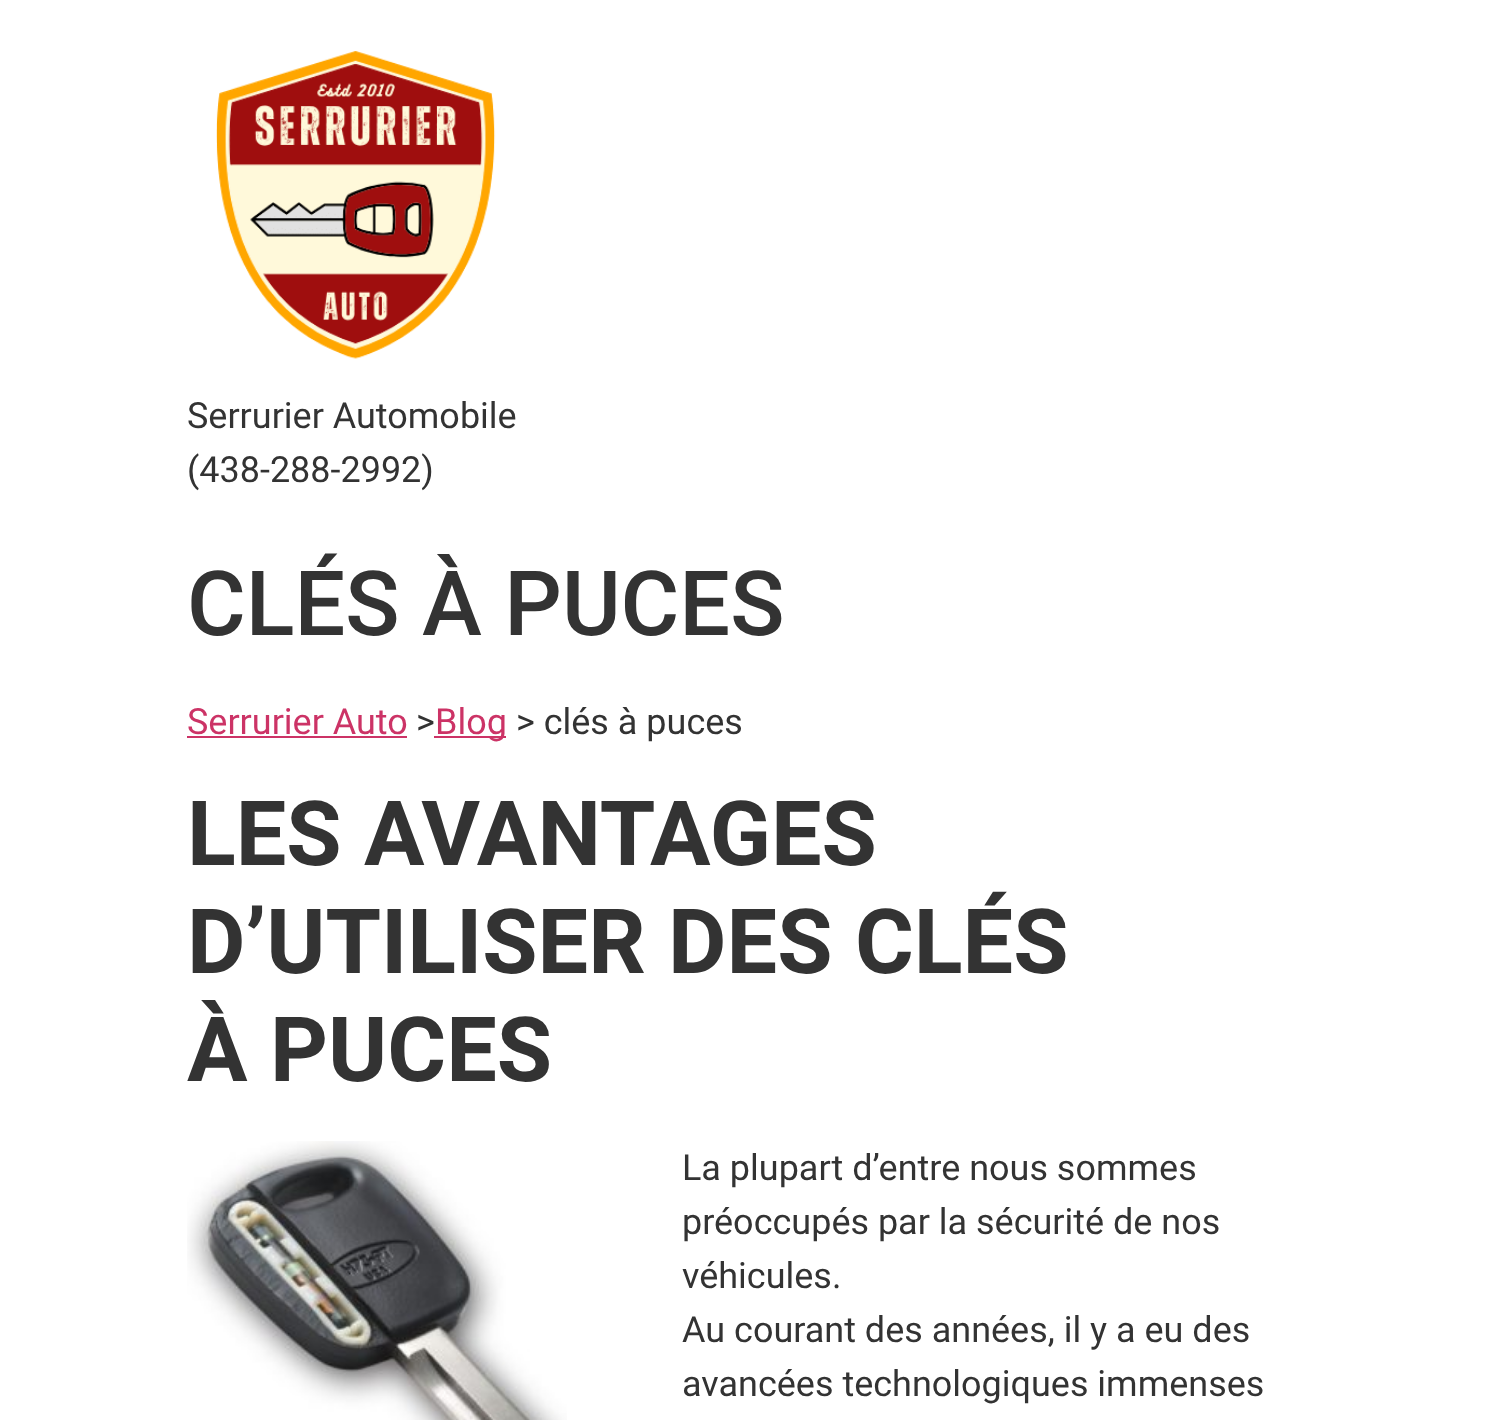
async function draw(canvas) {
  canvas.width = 1497
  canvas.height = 1420
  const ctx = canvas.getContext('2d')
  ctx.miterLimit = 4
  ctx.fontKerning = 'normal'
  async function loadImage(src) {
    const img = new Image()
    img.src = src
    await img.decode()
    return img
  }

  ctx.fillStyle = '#fff'
  ctx.fillRect(0, 0, 1497, 1420)
  ctx.drawImage(await loadImage('image0.png'), 216, 51, 280, 308)
  ctx.font = '36px Roboto'
  ctx.fillStyle = '#333'
  ctx.fillText('Serrurier Automobile', 187, 428)
  ctx.fillText('(438-288-2992)', 187, 482)
  ctx.font = '500 90px Roboto'
  ctx.fillText('CLÉS À PUCES', 187, 635)
  ctx.font = '36px Roboto'
  ctx.fillStyle = '#c36'
  ctx.fillText('Serrurier Auto', 187, 734)
  ctx.fillRect(187, 736, 220, 2)
  ctx.fillStyle = '#333'
  ctx.fillText('>', 416, 734)
  ctx.fillStyle = '#c36'
  ctx.fillRect(434, 736, 72, 2)
  ctx.fillText('Blog', 435, 734)
  ctx.fillStyle = '#333'
  ctx.fillText('> clés à puces', 516, 734)
  ctx.font = 'bold 90px Roboto'
  ctx.fillText('LES AVANTAGES', 187, 865)
  ctx.fillText('D’UTILISER DES CLÉS', 187, 973)
  ctx.fillText('À PUCES', 187, 1081)
  ctx.drawImage(await loadImage('image1.png'), 187, 1141, 380, 279)
  ctx.font = '36px Roboto'
  ctx.fillText('La plupart d’entre nous sommes', 682, 1180)
  ctx.fillText('préoccupés par la sécurité de nos', 682, 1234)
  ctx.fillText('véhicules.', 682, 1288)
  ctx.fillText('Au courant des années, il y a eu des', 682, 1342)
  ctx.fillText('avancées technologiques immenses', 682, 1396)
}

draw(document.querySelector('canvas'))
